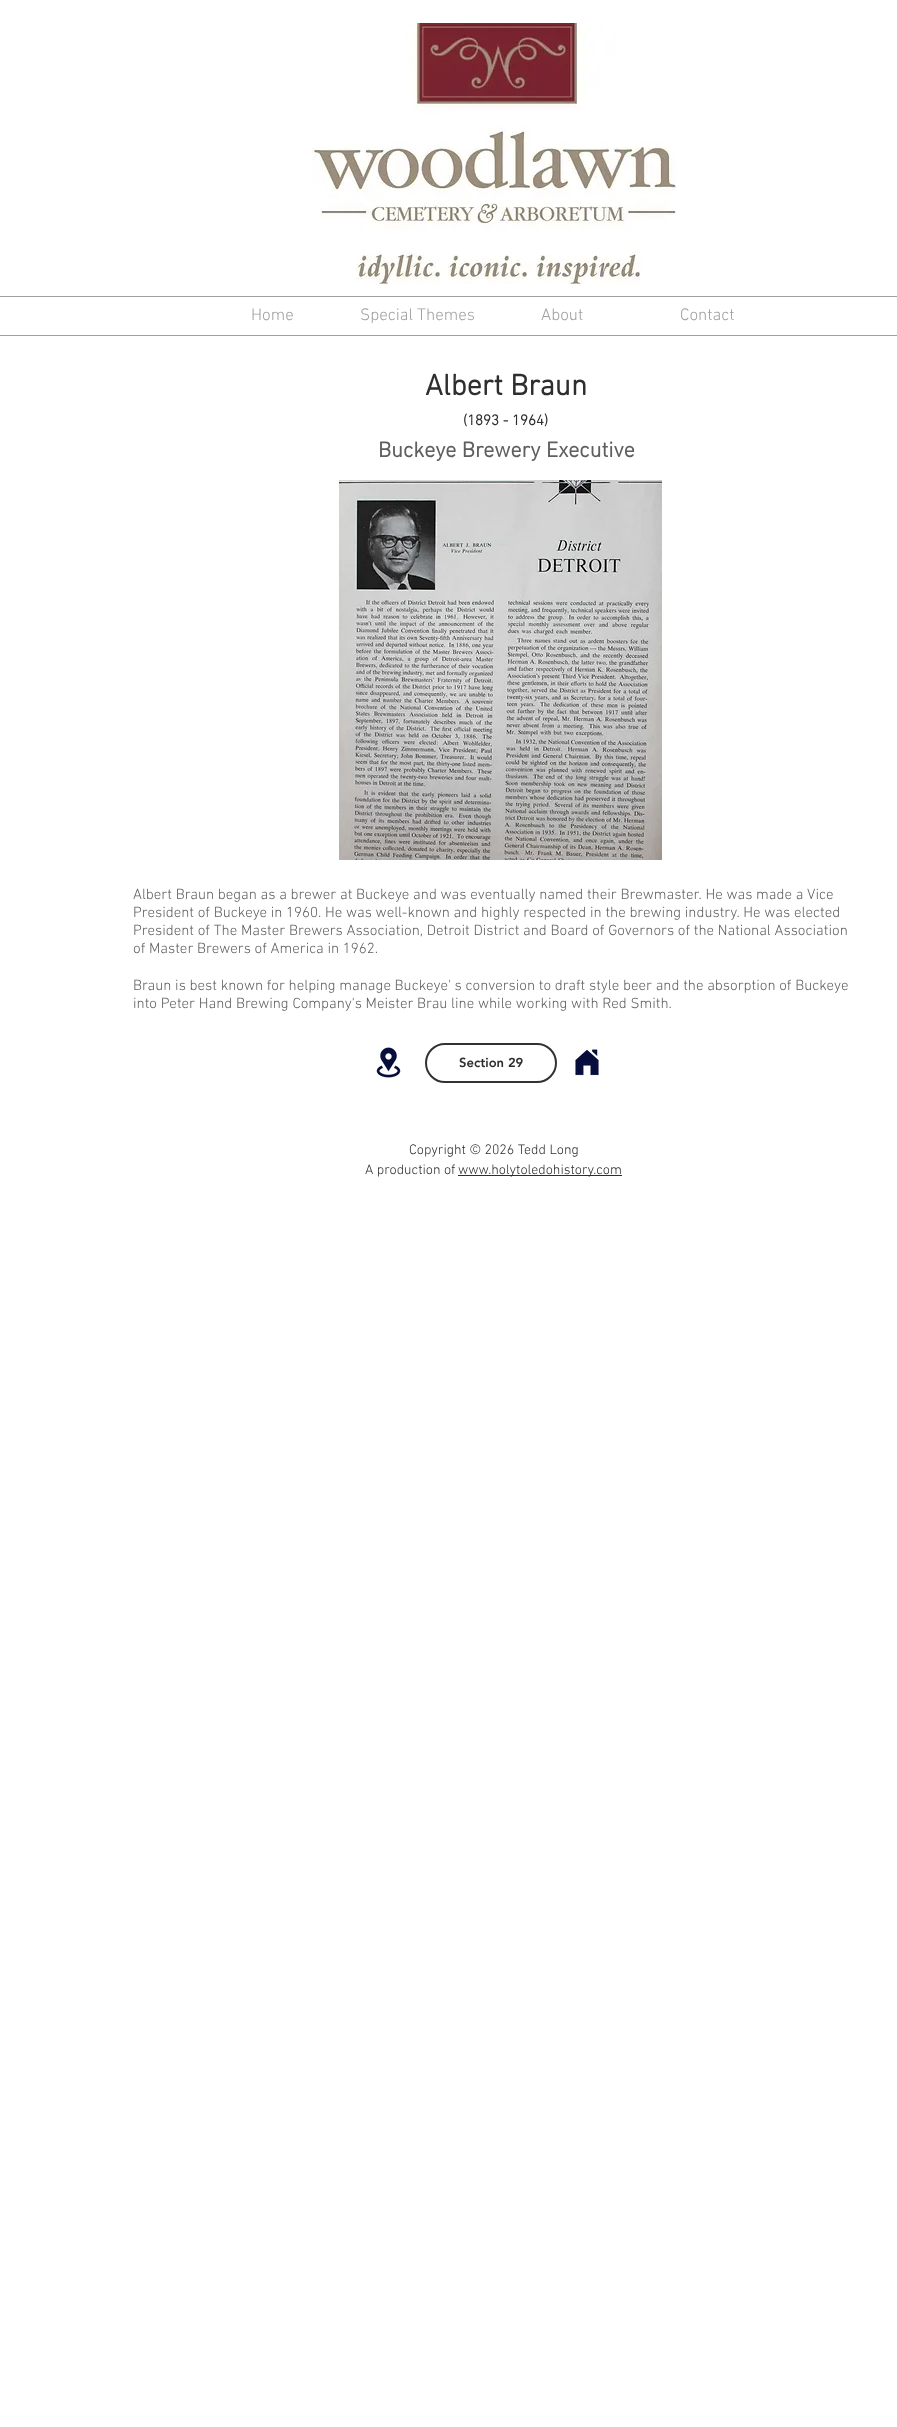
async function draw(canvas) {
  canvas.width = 897
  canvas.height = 2427
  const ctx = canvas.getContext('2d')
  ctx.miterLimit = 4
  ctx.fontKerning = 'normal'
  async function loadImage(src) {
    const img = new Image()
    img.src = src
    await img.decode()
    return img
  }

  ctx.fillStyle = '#fff'
  ctx.fillRect(0, 0, 897, 2427)
  ctx.drawImage(await loadImage('image0.png'), 312, 23, 364, 261)
  ctx.fillStyle = '#a0a09f'
  ctx.fillRect(0, 296, 897, 1)
  ctx.font = '300 17px "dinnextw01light"'
  ctx.fillText('Home', 251, 320)
  ctx.fillText('Special Themes', 360, 320)
  ctx.fillText('About', 541, 320)
  ctx.fillText('Contact', 680, 320)
  ctx.fillRect(0, 335, 897, 1)
  ctx.font = 'bold 30px "dinnextw01light"'
  ctx.fillStyle = '#2f2e2e'
  ctx.fillText('Albert Braun', 425, 395)
  ctx.font = 'bold 15px "dinnextw01light"'
  ctx.fillText('(1893 - 1964)', 463, 425)
  ctx.font = 'bold 22px "dinnextw01light"'
  ctx.fillStyle = '#605e5e'
  ctx.fillText('Buckeye Brewery Executive', 378, 457)
  ctx.drawImage(await loadImage('image1.png'), 339, 480, 323, 380)
  ctx.font = '300 15px "dinnextw01light"'
  ctx.fillText('Albert Braun began as a brewer at Buckeye and was eventually named their Brewmaster. He was made a Vice', 133, 899)
  ctx.fillText('President of Buckeye in 1960. He was well-known and highly respected in the brewing industry. He was elected', 133, 917)
  ctx.fillText('President of The Master Brewers Association, Detroit District and Board of Governors of the National Association', 133, 935)
  ctx.fillText('of Master Brewers of America in 1962.', 133, 953)
  ctx.fillText('Braun is best known for helping manage Buckeye\' s conversion to draft style beer and the absorption of Buckeye', 133, 990)
  ctx.fillText('into Peter Hand Brewing Company\'s Meister Brau line while working with Red Smith.', 133, 1008)
  ctx.drawImage(await loadImage('image2.png'), 376, 1047, 25, 31)
  ctx.beginPath()
  ctx.roundRect(426, 1044, 130, 38, 19)
  ctx.strokeStyle = '#323232'
  ctx.lineWidth = 2
  ctx.stroke()
  ctx.font = '900 13px "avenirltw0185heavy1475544"'
  ctx.fillStyle = '#2f2e2e'
  ctx.fillText('Section 29', 459, 1067)
  ctx.drawImage(await loadImage('image3.png'), 575, 1049, 24, 27)
  ctx.font = '300 14px "dinnextw01light"'
  ctx.fillText('Copyright © 2026 Tedd Long', 409, 1154)
  ctx.fillText('A production of', 365, 1174)
  ctx.fillRect(458, 1175, 164, 1)
  ctx.fillText('www.holytoledohistory.com', 458, 1174)
}

draw(document.querySelector('canvas'))
